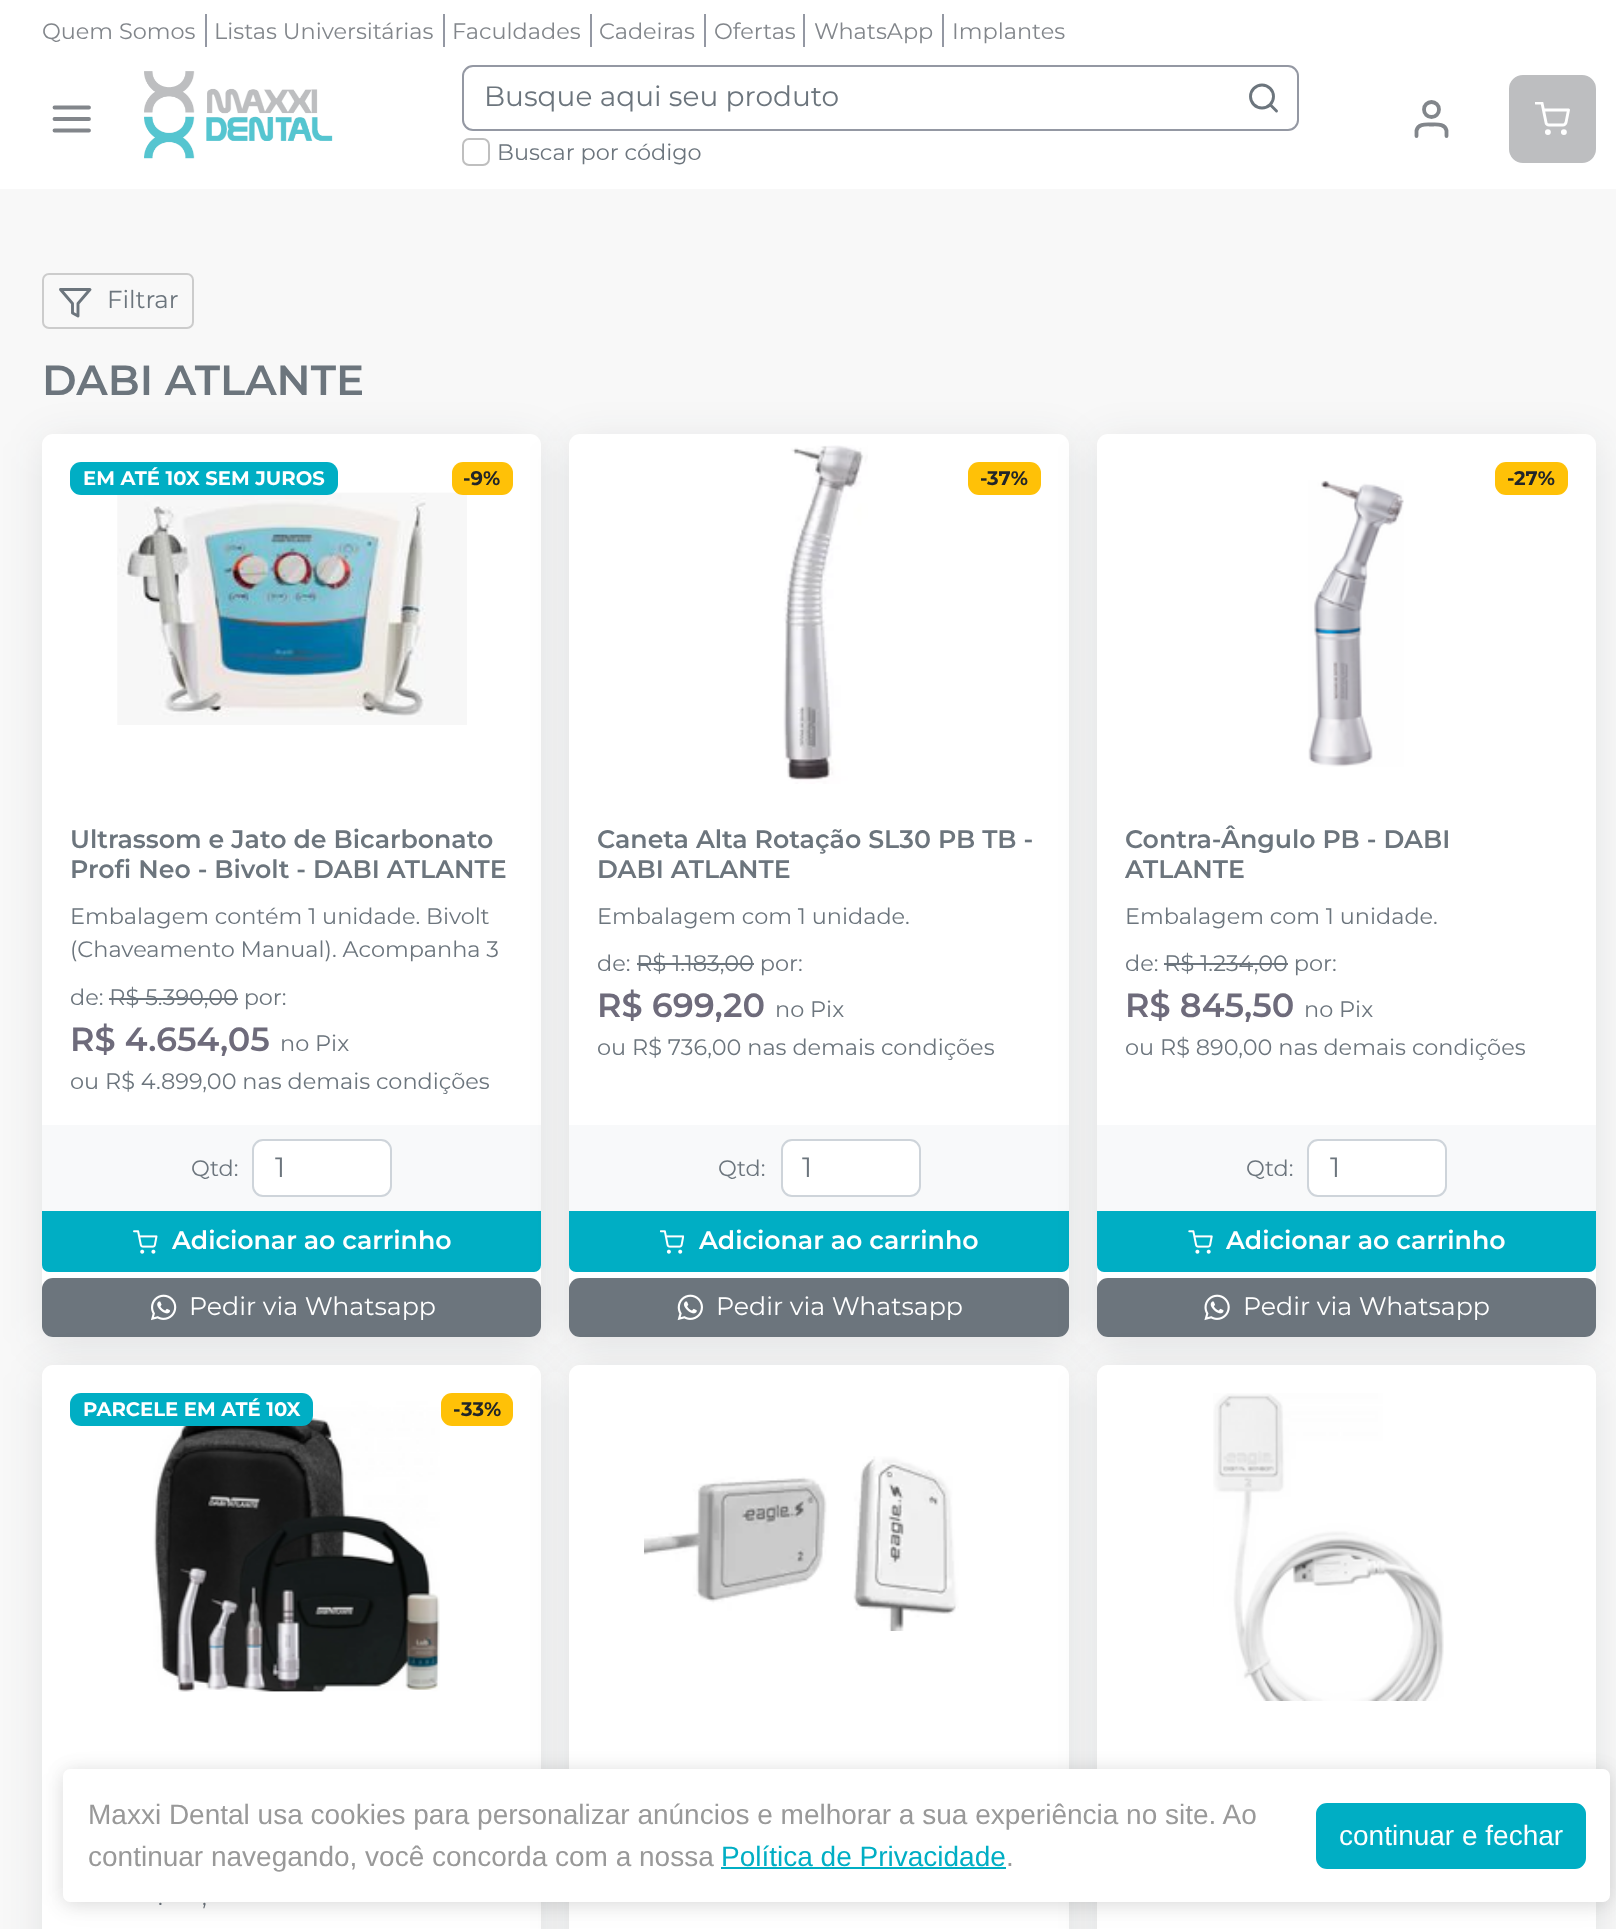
async function draw(canvas) {
  canvas.width = 1616
  canvas.height = 1929
  const ctx = canvas.getContext('2d')
  ctx.miterLimit = 4
  ctx.fontKerning = 'normal'
  async function loadImage(src) {
    const img = new Image()
    img.src = src
    await img.decode()
    return img
  }

  ctx.fillStyle = '#f8f8f8'
  ctx.fillRect(0, 0, 1616, 1929)
  ctx.fillStyle = '#fff'
  ctx.fillRect(0, 0, 1616, 189)
  ctx.fillStyle = '#9498a3'
  ctx.fillRect(205, 14, 2, 33)
  ctx.font = '22.4px Montserrat'
  ctx.fillStyle = '#82868b'
  ctx.fillText('Quem Somos', 42, 39)
  ctx.fillStyle = '#9498a3'
  ctx.fillRect(443, 14, 2, 33)
  ctx.fillStyle = '#82868b'
  ctx.fillText('Listas Universitárias', 214, 39)
  ctx.fillStyle = '#9498a3'
  ctx.fillRect(590, 14, 2, 33)
  ctx.fillStyle = '#82868b'
  ctx.fillText('Faculdades', 452, 39)
  ctx.fillStyle = '#9498a3'
  ctx.fillRect(704, 14, 2, 33)
  ctx.fillStyle = '#82868b'
  ctx.fillText('Cadeiras', 599, 39)
  ctx.fillStyle = '#9498a3'
  ctx.fillRect(803, 14, 2, 33)
  ctx.fillStyle = '#82868b'
  ctx.fillText('Ofertas', 714, 39)
  ctx.fillStyle = '#9498a3'
  ctx.fillRect(942, 14, 2, 33)
  ctx.fillStyle = '#82868b'
  ctx.fillText('WhatsApp', 814, 39)
  ctx.fillText('Implantes', 952, 39)
  ctx.beginPath()
  ctx.moveTo(54.5, 119)
  ctx.lineTo(89, 119)
  ctx.moveTo(54.5, 107.5)
  ctx.lineTo(89, 107.5)
  ctx.moveTo(54.5, 130.5)
  ctx.lineTo(89, 130.5)
  ctx.strokeStyle = '#82868b'
  ctx.lineWidth = 3.8
  ctx.lineCap = 'round'
  ctx.lineJoin = 'round'
  ctx.stroke()
  ctx.drawImage(await loadImage('image0.png'), 144, 71, 189, 88)
  ctx.beginPath()
  ctx.roundRect(463, 66, 835, 64, 10)
  ctx.strokeStyle = '#9498a3'
  ctx.lineWidth = 2
  ctx.lineJoin = 'miter'
  ctx.stroke()
  ctx.font = '28px Montserrat'
  ctx.fillStyle = '#6c757d'
  ctx.fillText('Busque aqui seu produto', 484, 106)
  ctx.beginPath()
  ctx.arc(1262, 96.5, 11.5, 0, 2 * Math.PI)
  ctx.strokeStyle = '#6c757d'
  ctx.lineWidth = 2.9
  ctx.stroke()
  ctx.beginPath()
  ctx.moveTo(1276.5, 111)
  ctx.lineTo(1270.5, 105)
  ctx.lineJoin = 'round'
  ctx.stroke()
  ctx.beginPath()
  ctx.roundRect(463, 139, 26, 26, 6)
  ctx.strokeStyle = '#bfbfbf'
  ctx.lineWidth = 2
  ctx.lineJoin = 'miter'
  ctx.stroke()
  ctx.font = '22.4px Montserrat'
  ctx.fillText('Buscar por código', 497, 160)
  ctx.beginPath()
  ctx.moveTo(1446.5, 136)
  ctx.lineTo(1446.5, 130.5)
  ctx.bezierCurveTo(1445, 123.5, 1437, 124.5, 1431.5, 124.5)
  ctx.bezierCurveTo(1426, 124.5, 1418, 123.5, 1416.5, 130.5)
  ctx.lineTo(1416.5, 136)
  ctx.strokeStyle = '#82868b'
  ctx.lineWidth = 3.8
  ctx.lineJoin = 'round'
  ctx.stroke()
  ctx.beginPath()
  ctx.arc(1431.5, 109.5, 7.5, 0, 2 * Math.PI)
  ctx.stroke()
  ctx.fillStyle = '#bdbec0'
  ctx.beginPath()
  ctx.roundRect(1510, 76, 85, 86, 13)
  ctx.fill()
  ctx.strokeStyle = '#bdbec0'
  ctx.lineWidth = 2
  ctx.lineJoin = 'miter'
  ctx.stroke()
  ctx.beginPath()
  ctx.arc(1547.9, 132.1, 1.5, 0, 2 * Math.PI)
  ctx.strokeStyle = '#fff'
  ctx.lineWidth = 2.9
  ctx.stroke()
  ctx.beginPath()
  ctx.arc(1563.9, 132.1, 1.5, 0, 2 * Math.PI)
  ctx.stroke()
  ctx.save()
  ctx.beginPath()
  ctx.rect(1535, 102, 35, 35)
  ctx.clip()
  ctx.beginPath()
  ctx.moveTo(1536, 103)
  ctx.lineTo(1542, 103)
  ctx.lineTo(1546, 122.5)
  ctx.bezierCurveTo(1546, 124, 1547.5, 125, 1549, 125)
  ctx.lineTo(1563, 125)
  ctx.bezierCurveTo(1564.5, 125, 1565.5, 124, 1566, 122.5)
  ctx.lineTo(1568.5, 110)
  ctx.lineTo(1543.5, 110)
  ctx.lineJoin = 'round'
  ctx.stroke()
  ctx.restore()
  ctx.beginPath()
  ctx.roundRect(43, 274, 150, 54, 6)
  ctx.strokeStyle = '#ccc'
  ctx.lineWidth = 2
  ctx.stroke()
  ctx.beginPath()
  ctx.moveTo(90, 289.5)
  ctx.lineTo(60.5, 289.5)
  ctx.lineTo(72.5, 303.5)
  ctx.lineTo(72.5, 313)
  ctx.lineTo(78, 316)
  ctx.lineTo(78, 303.5)
  ctx.closePath()
  ctx.strokeStyle = '#6c757d'
  ctx.lineWidth = 2.9
  ctx.lineJoin = 'round'
  ctx.stroke()
  ctx.font = '24.5px Montserrat'
  ctx.fillStyle = '#6c757d'
  ctx.fillText('Filtrar', 107, 308)
  ctx.font = '600 42px Montserrat'
  ctx.fillText('DABI ATLANTE', 42, 395)
  ctx.fillStyle = '#22292f1a'
  ctx.filter = 'blur(21px)'
  ctx.beginPath()
  ctx.roundRect(42, 441, 499, 903, 11)
  ctx.fill()
  ctx.filter = 'none'
  ctx.fillStyle = '#fff'
  ctx.beginPath()
  ctx.roundRect(42, 434, 499, 903, 11)
  ctx.fill()
  ctx.drawImage(await loadImage('image1.png'), 117, 492, 350, 233)
  ctx.fillStyle = '#00aec4'
  ctx.beginPath()
  ctx.roundRect(70, 462, 268, 33, 11)
  ctx.fill()
  ctx.font = 'bold 19.6px Montserrat'
  ctx.fillStyle = '#fff'
  ctx.fillText('EM ATÉ 10X SEM JUROS', 83, 485)
  ctx.fillStyle = '#f8f9fa'
  ctx.fillRect(42, 1125, 499, 86)
  ctx.fillStyle = '#00aec4'
  ctx.beginPath()
  ctx.roundRect(43, 1212, 497, 59, [0, 0, 6, 6])
  ctx.fill()
  ctx.strokeStyle = '#00aec4'
  ctx.lineWidth = 2
  ctx.lineJoin = 'miter'
  ctx.stroke()
  ctx.fillStyle = '#6c757d'
  ctx.beginPath()
  ctx.roundRect(42, 1278, 499, 59, 11)
  ctx.fill()
  ctx.fillStyle = '#22292f1a'
  ctx.filter = 'blur(21px)'
  ctx.beginPath()
  ctx.roundRect(569, 441, 500, 903, 11)
  ctx.fill()
  ctx.filter = 'none'
  ctx.fillStyle = '#ffc107'
  ctx.beginPath()
  ctx.roundRect(452, 462, 61, 33, 11)
  ctx.fill()
  ctx.fillStyle = '#212529'
  ctx.fillText('-9%', 463, 485)
  ctx.font = '600 25.25px Montserrat'
  ctx.fillStyle = '#6c757d'
  ctx.fillText('Ultrassom e Jato de Bicarbonato', 70, 848)
  ctx.fillText('Profi Neo - Bivolt - DABI ATLANTE', 70, 878)
  ctx.font = '22.4px Montserrat'
  ctx.fillText('Embalagem contém 1 unidade. Bivolt', 70, 924)
  ctx.fillText('(Chaveamento Manual). Acompanha 3', 70, 957)
  ctx.fillText('de: R$ 5.390,00 por:', 70, 1005)
  ctx.fillRect(109, 998, 129, 2)
  ctx.font = '600 33.5px Montserrat'
  ctx.fillStyle = '#6e6b7b'
  ctx.fillText('R$ 4.654,05', 70, 1051)
  ctx.font = '22.4px Montserrat'
  ctx.fillStyle = '#6c757d'
  ctx.fillText('no Pix', 280, 1051)
  ctx.fillText('ou R$ 4.899,00 nas demais condições', 70, 1089)
  ctx.fillText('Qtd:', 191, 1176)
  ctx.fillStyle = '#fff'
  ctx.beginPath()
  ctx.roundRect(253, 1140, 138, 56, 10)
  ctx.fill()
  ctx.strokeStyle = '#ced4da'
  ctx.stroke()
  ctx.font = '28px Montserrat'
  ctx.fillStyle = '#6c757d'
  ctx.fillText('1', 275, 1177)
  ctx.drawImage(await loadImage('image2.png'), 133, 1230, 25, 24)
  ctx.font = '600 25.25px Montserrat'
  ctx.fillStyle = '#fff'
  ctx.fillText('Adicionar ao carrinho', 172, 1249)
  ctx.drawImage(await loadImage('image3.png'), 151, 1294, 26, 27)
  ctx.font = '25.25px Montserrat'
  ctx.fillText('Pedir via Whatsapp', 189, 1315)
  ctx.beginPath()
  ctx.roundRect(569, 434, 500, 903, 11)
  ctx.fill()
  ctx.drawImage(await loadImage('image4.png'), 783, 445, 85, 339)
  ctx.fillStyle = '#f8f9fa'
  ctx.fillRect(569, 1125, 500, 86)
  ctx.fillStyle = '#00aec4'
  ctx.beginPath()
  ctx.roundRect(570, 1212, 498, 59, [0, 0, 6, 6])
  ctx.fill()
  ctx.strokeStyle = '#00aec4'
  ctx.stroke()
  ctx.fillStyle = '#6c757d'
  ctx.beginPath()
  ctx.roundRect(569, 1278, 500, 59, 11)
  ctx.fill()
  ctx.fillStyle = '#22292f1a'
  ctx.filter = 'blur(21px)'
  ctx.beginPath()
  ctx.roundRect(1097, 441, 499, 903, 11)
  ctx.fill()
  ctx.filter = 'none'
  ctx.fillStyle = '#ffc107'
  ctx.beginPath()
  ctx.roundRect(968, 462, 73, 33, 11)
  ctx.fill()
  ctx.font = 'bold 19.6px Montserrat'
  ctx.fillStyle = '#212529'
  ctx.fillText('-', 980, 485)
  ctx.fillText('37%', 987, 485)
  ctx.font = '600 25.25px Montserrat'
  ctx.fillStyle = '#6c757d'
  ctx.fillText('Caneta Alta Rotação SL30 PB TB -', 597, 848)
  ctx.fillText('DABI ATLANTE', 597, 878)
  ctx.font = '22.4px Montserrat'
  ctx.fillText('Embalagem com 1 unidade.', 597, 924)
  ctx.fillText('de: R$ 1.183,00 por:', 597, 971)
  ctx.fillRect(637, 963, 117, 2)
  ctx.font = '600 33.5px Montserrat'
  ctx.fillStyle = '#6e6b7b'
  ctx.fillText('R$ 699,20', 597, 1017)
  ctx.font = '22.4px Montserrat'
  ctx.fillStyle = '#6c757d'
  ctx.fillText('no Pix', 775, 1017)
  ctx.fillText('ou R$ 736,00 nas demais condições', 597, 1055)
  ctx.fillText('Qtd:', 718, 1176)
  ctx.fillStyle = '#fff'
  ctx.beginPath()
  ctx.roundRect(782, 1140, 138, 56, 10)
  ctx.fill()
  ctx.strokeStyle = '#ced4da'
  ctx.stroke()
  ctx.font = '28px Montserrat'
  ctx.fillStyle = '#6c757d'
  ctx.fillText('1', 802, 1177)
  ctx.drawImage(await loadImage('image5.png'), 660, 1230, 24, 24)
  ctx.font = '600 25.25px Montserrat'
  ctx.fillStyle = '#fff'
  ctx.fillText('Adicionar ao carrinho', 699, 1249)
  ctx.drawImage(await loadImage('image6.png'), 677, 1294, 26, 27)
  ctx.font = '25.25px Montserrat'
  ctx.fillText('Pedir via Whatsapp', 716, 1315)
  ctx.beginPath()
  ctx.roundRect(1097, 434, 499, 903, 11)
  ctx.fill()
  ctx.fillStyle = '#ffc107'
  ctx.beginPath()
  ctx.roundRect(1495, 462, 73, 33, 11)
  ctx.fill()
  ctx.font = 'bold 19.6px Montserrat'
  ctx.fillStyle = '#212529'
  ctx.fillText('-', 1507, 485)
  ctx.fillText('27%', 1514, 485)
  ctx.drawImage(await loadImage('image7.png'), 1308, 480, 96, 287)
  ctx.font = '600 25.25px Montserrat'
  ctx.fillStyle = '#6c757d'
  ctx.fillText('Contra-Ângulo PB - DABI', 1125, 848)
  ctx.fillText('ATLANTE', 1125, 878)
  ctx.font = '22.4px Montserrat'
  ctx.fillText('Embalagem com 1 unidade.', 1125, 924)
  ctx.fillText('de: R$ 1.234,00 por:', 1125, 971)
  ctx.fillRect(1164, 963, 124, 2)
  ctx.font = '600 33.5px Montserrat'
  ctx.fillStyle = '#6e6b7b'
  ctx.fillText('R$ 845,50', 1125, 1017)
  ctx.font = '22.4px Montserrat'
  ctx.fillStyle = '#6c757d'
  ctx.fillText('no Pix', 1304, 1017)
  ctx.fillText('ou R$ 890,00 nas demais condições', 1125, 1055)
  ctx.fillStyle = '#f8f9fa'
  ctx.fillRect(1097, 1125, 499, 86)
  ctx.fillStyle = '#6c757d'
  ctx.fillText('Qtd:', 1246, 1176)
  ctx.fillStyle = '#fff'
  ctx.beginPath()
  ctx.roundRect(1308, 1140, 138, 56, 10)
  ctx.fill()
  ctx.stroke()
  ctx.font = '28px Montserrat'
  ctx.fillStyle = '#6c757d'
  ctx.fillText('1', 1330, 1177)
  ctx.fillStyle = '#00aec4'
  ctx.beginPath()
  ctx.roundRect(1098, 1212, 497, 59, [0, 0, 6, 6])
  ctx.fill()
  ctx.strokeStyle = '#00aec4'
  ctx.stroke()
  ctx.drawImage(await loadImage('image8.png'), 1188, 1230, 25, 24)
  ctx.font = '600 25.25px Montserrat'
  ctx.fillStyle = '#fff'
  ctx.fillText('Adicionar ao carrinho', 1226, 1249)
  ctx.fillStyle = '#6c757d'
  ctx.beginPath()
  ctx.roundRect(1097, 1278, 499, 59, 11)
  ctx.fill()
  ctx.drawImage(await loadImage('image9.png'), 1204, 1294, 26, 27)
  ctx.font = '25.25px Montserrat'
  ctx.fillStyle = '#fff'
  ctx.fillText('Pedir via Whatsapp', 1243, 1315)
  ctx.fillStyle = '#22292f1a'
  ctx.filter = 'blur(21px)'
  ctx.beginPath()
  ctx.roundRect(42, 1372, 499, 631, 11)
  ctx.fill()
  ctx.filter = 'none'
  ctx.fillStyle = '#fff'
  ctx.beginPath()
  ctx.roundRect(42, 1365, 499, 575, 11)
  ctx.fill()
  ctx.drawImage(await loadImage('image10.png'), 153, 1401, 287, 291)
  ctx.fillStyle = '#00aec4'
  ctx.beginPath()
  ctx.roundRect(70, 1393, 243, 33, 11)
  ctx.fill()
  ctx.font = 'bold 19.6px Montserrat'
  ctx.fillStyle = '#fff'
  ctx.fillText('PARCELE EM ATÉ 10X', 83, 1416)
  ctx.fillStyle = '#22292f1a'
  ctx.filter = 'blur(21px)'
  ctx.beginPath()
  ctx.roundRect(569, 1372, 500, 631, 11)
  ctx.fill()
  ctx.filter = 'none'
  ctx.fillStyle = '#ffc107'
  ctx.beginPath()
  ctx.roundRect(441, 1393, 72, 33, 11)
  ctx.fill()
  ctx.fillStyle = '#212529'
  ctx.fillText('-', 453, 1416)
  ctx.fillText('33%', 461, 1416)
  ctx.font = '22.4px Montserrat'
  ctx.fillStyle = '#6c757d'
  ctx.fillText('.', 158, 1905)
  ctx.fillText(',', 202, 1905)
  ctx.fillStyle = '#fff'
  ctx.beginPath()
  ctx.roundRect(569, 1365, 500, 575, 11)
  ctx.fill()
  ctx.drawImage(await loadImage('image11.png'), 644, 1456, 315, 175)
  ctx.fillStyle = '#22292f1a'
  ctx.filter = 'blur(21px)'
  ctx.beginPath()
  ctx.roundRect(1097, 1372, 499, 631, 11)
  ctx.fill()
  ctx.filter = 'none'
  ctx.fillStyle = '#fff'
  ctx.beginPath()
  ctx.roundRect(1097, 1365, 499, 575, 11)
  ctx.fill()
  ctx.drawImage(await loadImage('image12.png'), 1213, 1393, 231, 308)
  ctx.fillStyle = '#0000000d'
  ctx.filter = 'blur(13px)'
  ctx.beginPath()
  ctx.roundRect(63, 1773, 1547, 133, 7)
  ctx.fill()
  ctx.filter = 'none'
  ctx.fillStyle = '#0000001a'
  ctx.filter = 'blur(9px)'
  ctx.beginPath()
  ctx.roundRect(63, 1771, 1547, 133, 7)
  ctx.fill()
  ctx.filter = 'none'
  ctx.fillStyle = '#fff'
  ctx.beginPath()
  ctx.roundRect(63, 1769, 1547, 133, 7)
  ctx.fill()
  ctx.font = '28px Liberation Sans'
  ctx.fillStyle = '#999'
  ctx.fillText('Maxxi Dental usa cookies para personalizar anúncios e melhorar a sua experiência no site. Ao', 88, 1824)
  ctx.fillText('continuar navegando, você concorda com a nossa', 88, 1866)
  ctx.fillStyle = '#00aec4'
  ctx.fillText('Política de Privacidade', 721, 1866)
  ctx.fillRect(721, 1867, 285, 2)
  ctx.fillStyle = '#999'
  ctx.fillText('.', 1006, 1866)
  ctx.fillStyle = '#00aec4'
  ctx.beginPath()
  ctx.roundRect(1317, 1804, 268, 64, 10)
  ctx.fill()
  ctx.stroke()
  ctx.fillStyle = '#fff'
  ctx.fillText('continuar e fechar', 1339, 1845)
}

draw(document.querySelector('canvas'))
